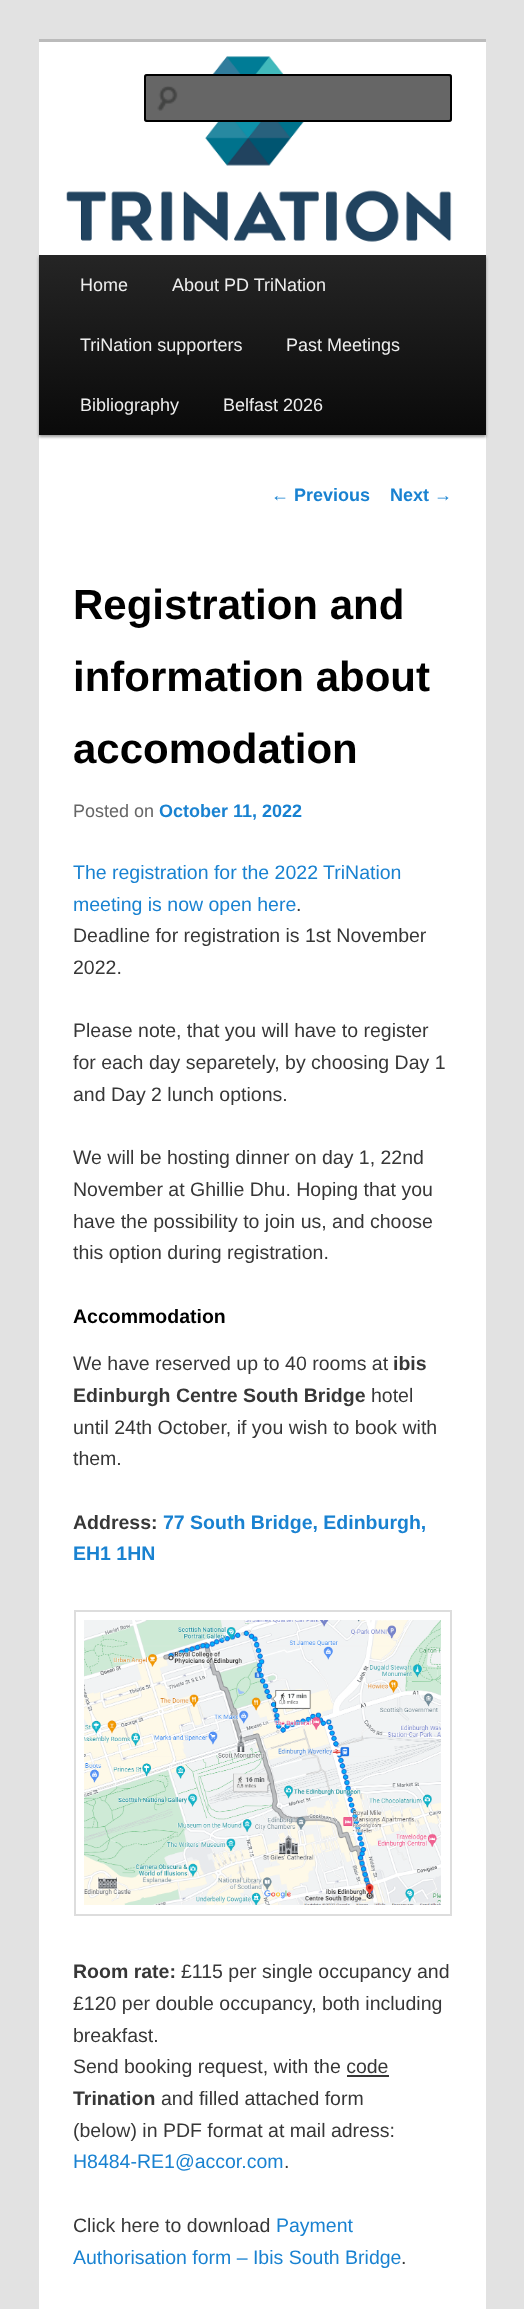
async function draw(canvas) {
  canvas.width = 524
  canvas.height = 2309
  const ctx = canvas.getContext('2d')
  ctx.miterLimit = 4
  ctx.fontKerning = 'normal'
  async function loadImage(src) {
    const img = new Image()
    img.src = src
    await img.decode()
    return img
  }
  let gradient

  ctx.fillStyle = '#e2e2e2'
  ctx.fillRect(0, 0, 524, 2309)
  ctx.fillStyle = '#fff'
  ctx.fillRect(39, 42, 447, 2267)
  ctx.fillStyle = '#bbb'
  ctx.fillRect(39, 39, 447, 3)
  ctx.fillStyle = '#00000066'
  ctx.filter = 'blur(1.5px)'
  ctx.beginPath()
  ctx.rect(39, 257, 447, 180)
  ctx.fill()
  ctx.filter = 'none'
  ctx.drawImage(await loadImage('image0.png'), 41, 56, 443, 199)
  ctx.fillStyle = '#666'
  ctx.beginPath()
  ctx.roundRect(144, 74, 308, 48, 3)
  ctx.fill()
  ctx.drawImage(await loadImage('image1.png'), 157, 86, 21, 25)
  ctx.fillStyle = '#5c5c5c'
  ctx.beginPath()
  ctx.moveTo(147, 76)
  ctx.lineTo(448, 76)
  ctx.bezierCurveTo(449, 76, 450, 77, 450, 78)
  ctx.lineTo(450, 76)
  ctx.lineTo(448, 75)
  ctx.lineTo(148, 75)
  ctx.bezierCurveTo(146, 75, 146, 77, 146, 78)
  ctx.bezierCurveTo(146, 77, 146, 76, 147, 76)
  ctx.closePath()
  ctx.fill()
  ctx.beginPath()
  ctx.roundRect(145, 75, 306, 46, 2)
  ctx.strokeStyle = '#000'
  ctx.lineWidth = 2
  ctx.stroke()
  gradient = ctx.createLinearGradient(263, 255, 263, 435)
  gradient.addColorStop(0, '#252525')
  gradient.addColorStop(1, '#0a0a0a')
  ctx.fillStyle = gradient
  ctx.fillRect(39, 255, 447, 180)
  ctx.font = '18px Liberation Sans'
  ctx.fillStyle = '#eee'
  ctx.fillText('Home', 80, 291)
  ctx.fillText('About PD TriNation', 172, 291)
  ctx.fillText('TriNation supporters', 80, 351)
  ctx.fillText('Past Meetings', 286, 351)
  ctx.fillText('Bibliography', 80, 411)
  ctx.fillText('Belfast 2026', 223, 411)
  ctx.fillStyle = '#1982d1'
  ctx.fillText('←', 271, 501)
  ctx.font = 'bold 18px Liberation Sans'
  ctx.fillText('Previous', 294, 501)
  ctx.fillText('Next', 390, 501)
  ctx.font = '18px Liberation Sans'
  ctx.fillText('→', 434, 501)
  ctx.font = 'bold 42px Liberation Sans'
  ctx.fillStyle = '#000'
  ctx.fillText('Registration and', 73, 619)
  ctx.fillText('information about', 73, 691)
  ctx.fillText('accomodation', 73, 763)
  ctx.font = '18px Liberation Sans'
  ctx.fillStyle = '#666'
  ctx.fillText('Posted on', 73, 817)
  ctx.font = 'bold 18px Liberation Sans'
  ctx.fillStyle = '#1982d1'
  ctx.fillText('October 11, 2022', 159, 817)
  ctx.font = '19.5px Liberation Sans'
  ctx.fillText('The registration for the 2022 TriNation', 73, 879)
  ctx.fillText('meeting is now open here', 73, 911)
  ctx.fillStyle = '#373737'
  ctx.fillText('.', 296, 911)
  ctx.fillText('Deadline for registration is 1st November', 73, 942)
  ctx.fillText('2022.', 73, 974)
  ctx.fillText('Please note, that you will have to register', 73, 1037)
  ctx.fillText('for each day separetely, by choosing Day 1', 73, 1069)
  ctx.fillText('and Day 2 lunch options.', 73, 1101)
  ctx.fillText('We will be hosting dinner on day 1, 22nd', 73, 1164)
  ctx.fillText('November at Ghillie Dhu. Hoping that you', 73, 1196)
  ctx.fillText('have the possibility to join us, and choose', 73, 1228)
  ctx.fillText('this option during registration.', 73, 1259)
  ctx.font = 'bold 19.5px Liberation Sans'
  ctx.fillStyle = '#000'
  ctx.fillText('Accommodation', 73, 1323)
  ctx.font = '19.5px Liberation Sans'
  ctx.fillStyle = '#373737'
  ctx.fillText('We have reserved up to 40 rooms at', 73, 1370)
  ctx.font = 'bold 19.5px Liberation Sans'
  ctx.fillText('ibis', 393, 1370)
  ctx.fillText('Edinburgh Centre South Bridge', 73, 1402)
  ctx.font = '19.5px Liberation Sans'
  ctx.fillText('hotel', 371, 1402)
  ctx.fillText('until 24th October, if you wish to book with', 73, 1434)
  ctx.fillText('them.', 73, 1465)
  ctx.font = 'bold 19.5px Liberation Sans'
  ctx.fillText('Address:', 73, 1529)
  ctx.fillStyle = '#1982d1'
  ctx.fillText('77 South Bridge, Edinburgh,', 163, 1529)
  ctx.fillText('EH1 1HN', 73, 1560)
  ctx.strokeStyle = '#ddd'
  ctx.strokeRect(75, 1611, 376, 304)
  ctx.drawImage(await loadImage('image2.png'), 84, 1620, 357, 285)
  ctx.fillStyle = '#373737'
  ctx.fillText('Room rate:', 73, 1978)
  ctx.font = '19.5px Liberation Sans'
  ctx.fillText('£115 per single occupancy and', 181, 1978)
  ctx.fillText('£120 per double occupancy, both including', 73, 2010)
  ctx.fillText('breakfast.', 73, 2042)
  ctx.fillText('Send booking request, with the code', 73, 2073)
  ctx.fillRect(347, 2075, 42, 2)
  ctx.font = 'bold 19.5px Liberation Sans'
  ctx.fillText('Trination', 73, 2105)
  ctx.font = '19.5px Liberation Sans'
  ctx.fillText('and filled attached form', 161, 2105)
  ctx.fillText('(below) in PDF format at mail adress:', 73, 2137)
  ctx.fillStyle = '#1982d1'
  ctx.fillText('H8484-RE1@accor.com', 73, 2168)
  ctx.fillStyle = '#373737'
  ctx.fillText('.', 284, 2168)
  ctx.fillText('Click here to download', 73, 2232)
  ctx.fillStyle = '#1982d1'
  ctx.fillText('Payment', 276, 2232)
  ctx.fillText('Authorisation form – Ibis South Bridge', 73, 2264)
  ctx.fillStyle = '#373737'
  ctx.fillText('.', 401, 2264)
}

draw(document.querySelector('canvas'))
